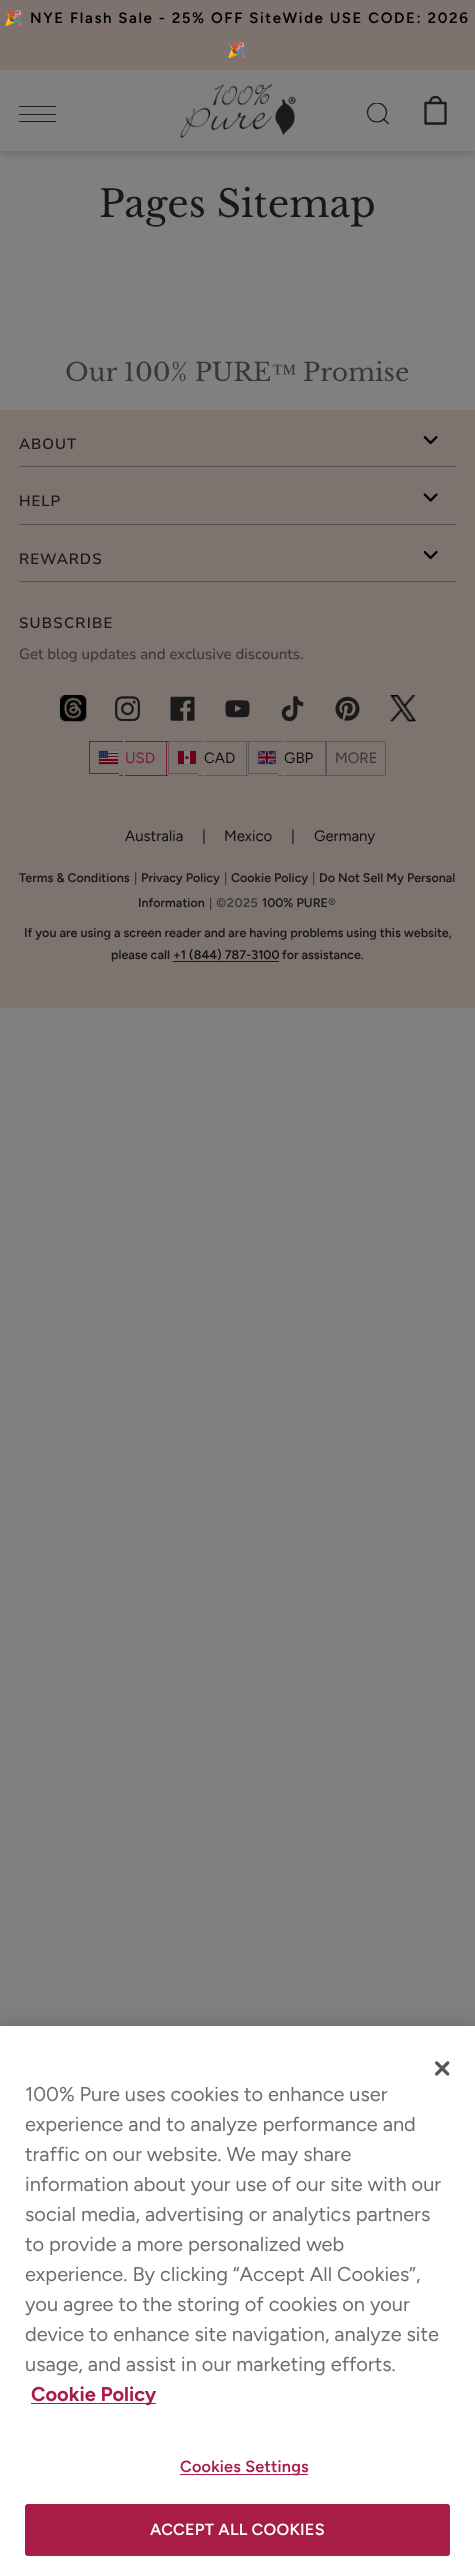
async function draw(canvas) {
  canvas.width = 475
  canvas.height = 2568
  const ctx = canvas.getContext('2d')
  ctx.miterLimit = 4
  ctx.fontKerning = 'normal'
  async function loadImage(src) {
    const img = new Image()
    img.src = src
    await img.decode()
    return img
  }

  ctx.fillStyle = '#808080'
  ctx.fillRect(0, 0, 475, 2568)
  ctx.fillStyle = '#7e726f'
  ctx.fillRect(0, 0, 475, 70)
  ctx.letterSpacing = '1.6px'
  ctx.font = 'bold 15px Noto Color Emoji'
  ctx.fillStyle = '#000'
  ctx.fillText('🎉', 4, 23)
  ctx.font = '600 15px Figtree'
  ctx.fillText('NYE Flash Sale - 25% OFF SiteWide USE CODE: 2026', 30, 23)
  ctx.font = 'bold 15px Noto Color Emoji'
  ctx.fillText('🎉', 227, 55)
  ctx.save()
  ctx.beginPath()
  ctx.rect(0, 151, 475, 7)
  ctx.clip()
  ctx.fillStyle = '#0000001f'
  ctx.filter = 'blur(3px)'
  ctx.beginPath()
  ctx.rect(0, 74, 475, 81)
  ctx.fill()
  ctx.filter = 'none'
  ctx.restore()
  ctx.fillStyle = '#181818'
  ctx.fillRect(19, 106, 37, 1)
  ctx.fillRect(19, 114, 37, 1)
  ctx.fillRect(19, 121, 37, 1)
  ctx.drawImage(await loadImage('image0.png'), 180, 84, 116, 54)
  ctx.save()
  ctx.beginPath()
  ctx.rect(366, 103, 23, 21)
  ctx.clip()
  ctx.beginPath()
  ctx.arc(377, 112.5, 9.5, 0, 2 * Math.PI)
  ctx.strokeStyle = '#181818'
  ctx.lineWidth = 1.2
  ctx.stroke()
  ctx.beginPath()
  ctx.moveTo(383.5, 119)
  ctx.lineTo(390.5, 125.5)
  ctx.stroke()
  ctx.restore()
  ctx.beginPath()
  ctx.moveTo(430, 103)
  ctx.bezierCurveTo(430, 95, 441, 95, 441, 103)
  ctx.moveTo(425.5, 103)
  ctx.lineTo(425.5, 123.5)
  ctx.lineTo(445.5, 123.5)
  ctx.lineTo(445.5, 103)
  ctx.closePath()
  ctx.strokeStyle = '#1a1a1a'
  ctx.lineWidth = 2.3
  ctx.lineCap = 'round'
  ctx.lineJoin = 'round'
  ctx.stroke()
  ctx.letterSpacing = '0px'
  ctx.font = '37.5px Libre Baskerville'
  ctx.fillText('Pages Sitemap', 99, 217)
  ctx.fillStyle = '#7d736f'
  ctx.fillRect(0, 410, 475, 598)
  ctx.font = '25px Libre Baskerville'
  ctx.fillStyle = '#383838'
  ctx.fillText('Our 100% PURE', 65, 381)
  ctx.font = '25px Liberation Serif'
  ctx.fillText('™', 272, 381)
  ctx.font = '25px Libre Baskerville'
  ctx.fillText('Promise', 303, 381)
  ctx.fillStyle = '#555556'
  ctx.fillRect(19, 466, 437, 1)
  ctx.letterSpacing = '1px'
  ctx.font = '600 15px Nunito Sans'
  ctx.fillStyle = '#181818'
  ctx.fillText('ABOUT', 19, 449)
  ctx.drawImage(await loadImage('image1.png'), 423, 436, 15, 9)
  ctx.fillStyle = '#555556'
  ctx.fillRect(19, 524, 437, 1)
  ctx.fillStyle = '#181818'
  ctx.fillText('HELP', 19, 506)
  ctx.drawImage(await loadImage('image2.png'), 423, 493, 15, 9)
  ctx.fillStyle = '#555556'
  ctx.fillRect(19, 581, 437, 1)
  ctx.fillStyle = '#181818'
  ctx.fillText('REWARDS', 19, 564)
  ctx.drawImage(await loadImage('image1.png'), 423, 551, 15, 9)
  ctx.letterSpacing = '1.25px'
  ctx.fillText('SUBSCRIBE', 19, 628)
  ctx.letterSpacing = '0px'
  ctx.font = '500 15px Nunito Sans'
  ctx.fillStyle = '#383838'
  ctx.fillText('Get blog updates and exclusive discounts.', 19, 659)
  ctx.drawImage(await loadImage('image3.png'), 60, 695, 27, 27)
  ctx.drawImage(await loadImage('image4.png'), 115, 696, 25, 25)
  ctx.drawImage(await loadImage('image5.png'), 170, 696, 25, 25)
  ctx.drawImage(await loadImage('image6.png'), 225, 700, 25, 18)
  ctx.drawImage(await loadImage('image7.png'), 281, 696, 23, 25)
  ctx.drawImage(await loadImage('image8.png'), 335, 696, 25, 25)
  ctx.drawImage(await loadImage('image9.png'), 390, 695, 27, 27)
  ctx.strokeStyle = '#6f6f70'
  ctx.lineWidth = 1
  ctx.lineJoin = 'miter'
  ctx.strokeRect(98.5, 750.5, 20, 14)
  ctx.drawImage(await loadImage('image10.png'), 99, 751, 19, 13)
  ctx.font = '15px Figtree'
  ctx.fillStyle = '#771a3b'
  ctx.fillText('USD', 125, 763)
  ctx.fillRect(89, 741, 34, 1)
  ctx.fillRect(89, 773, 30, 1)
  ctx.fillRect(89, 741, 1, 33)
  ctx.fillRect(119, 775, 4, 1)
  ctx.fillRect(125, 741, 43, 1)
  ctx.fillRect(125, 775, 30, 1)
  ctx.fillRect(166, 741, 1, 35)
  ctx.fillRect(155, 775, 13, 1)
  ctx.strokeRect(176.5, 750.5, 21, 14)
  ctx.drawImage(await loadImage('image11.png'), 178, 751, 18, 13)
  ctx.fillStyle = '#111'
  ctx.fillText('CAD', 204, 763)
  ctx.fillStyle = '#585858'
  ctx.fillRect(168, 741, 34, 1)
  ctx.fillRect(168, 773, 30, 1)
  ctx.fillRect(168, 741, 1, 33)
  ctx.fillRect(198, 775, 4, 1)
  ctx.fillRect(204, 741, 78, 1)
  ctx.fillRect(204, 775, 31, 1)
  ctx.fillRect(246, 741, 1, 35)
  ctx.fillRect(235, 775, 13, 1)
  ctx.strokeRect(256.5, 750.5, 21, 14)
  ctx.drawImage(await loadImage('image12.png'), 258, 751, 18, 13)
  ctx.fillStyle = '#111'
  ctx.fillText('GBP', 284, 763)
  ctx.fillStyle = '#585858'
  ctx.fillRect(248, 773, 30, 1)
  ctx.fillRect(248, 741, 1, 33)
  ctx.fillRect(278, 775, 4, 1)
  ctx.fillRect(284, 741, 42, 1)
  ctx.fillRect(284, 775, 30, 1)
  ctx.fillRect(325, 741, 1, 35)
  ctx.fillRect(314, 775, 12, 1)
  ctx.strokeStyle = '#585858'
  ctx.strokeRect(326.5, 741.5, 59, 34)
  ctx.fillStyle = '#383838'
  ctx.fillText('MORE', 335, 763)
  ctx.fillStyle = '#111'
  ctx.fillText('Australia', 125, 841)
  ctx.fillText('|', 202, 841)
  ctx.fillText('Mexico', 224, 841)
  ctx.fillText('|', 291, 841)
  ctx.fillText('Germany', 314, 841)
  ctx.font = '600 12.5px Figtree'
  ctx.fillStyle = '#181818'
  ctx.fillText('Terms & Conditions', 19, 882)
  ctx.letterSpacing = '0.5px'
  ctx.fillStyle = '#383838'
  ctx.fillText('|', 134, 882)
  ctx.letterSpacing = '0px'
  ctx.fillStyle = '#181818'
  ctx.fillText('Privacy Policy', 141, 882)
  ctx.letterSpacing = '0.5px'
  ctx.fillStyle = '#383838'
  ctx.fillText('|', 224, 882)
  ctx.letterSpacing = '0px'
  ctx.fillStyle = '#181818'
  ctx.fillText('Cookie Policy', 231, 882)
  ctx.letterSpacing = '0.5px'
  ctx.fillStyle = '#383838'
  ctx.fillText('|', 312, 882)
  ctx.letterSpacing = '0px'
  ctx.fillStyle = '#181818'
  ctx.fillText('Do Not Sell My Personal', 319, 882)
  ctx.fillText('Information', 138, 907)
  ctx.letterSpacing = '0.5px'
  ctx.fillStyle = '#383838'
  ctx.fillText('| ©2025', 209, 907)
  ctx.letterSpacing = '0px'
  ctx.fillStyle = '#181818'
  ctx.fillText('100% PURE', 262, 907)
  ctx.letterSpacing = '0.5px'
  ctx.fillStyle = '#383838'
  ctx.fillText('®', 328, 907)
  ctx.letterSpacing = '0px'
  ctx.fillStyle = '#181818'
  ctx.fillText('If you are using a screen reader and are having problems using this website,', 24, 937)
  ctx.fillText('please call', 111, 959)
  ctx.fillStyle = '#111'
  ctx.fillText('+1 (844) 787-3100', 173, 959)
  ctx.fillStyle = '#1a1a1a'
  ctx.fillRect(173, 961, 106, 1)
  ctx.fillStyle = '#181818'
  ctx.fillText('for assistance.', 282, 959)
  ctx.fillStyle = '#00000033'
  ctx.filter = 'blur(11px)'
  ctx.beginPath()
  ctx.rect(0, 2026, 475, 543)
  ctx.fill()
  ctx.filter = 'none'
  ctx.fillStyle = '#fff'
  ctx.fillRect(0, 2026, 475, 542)
  ctx.drawImage(await loadImage('image13.png'), 435, 2061, 15, 15)
  ctx.font = '20px Figtree'
  ctx.fillStyle = '#6d6e70'
  ctx.fillText('100% Pure uses cookies to enhance user', 25, 2101)
  ctx.fillText('experience and to analyze performance and', 25, 2131)
  ctx.fillText('traffic on our website. We may share', 25, 2161)
  ctx.fillText('information about your use of our site with our', 25, 2191)
  ctx.fillText('social media, advertising or analytics partners', 25, 2221)
  ctx.fillText('to provide a more personalized web', 25, 2251)
  ctx.fillText('experience. By clicking “Accept All Cookies”,', 25, 2281)
  ctx.fillText('you agree to the storing of cookies on your', 25, 2311)
  ctx.fillText('device to enhance site navigation, analyze site', 25, 2341)
  ctx.fillText('usage, and assist in our marketing efforts.', 25, 2371)
  ctx.fillStyle = '#a81d46'
  ctx.fillRect(31, 2403, 125, 1)
  ctx.font = 'bold 20px Figtree'
  ctx.fillText('Cookie Policy', 31, 2401)
  ctx.fillRect(180, 2474, 128, 1)
  ctx.letterSpacing = '0.2px'
  ctx.font = '600 16.25px Figtree'
  ctx.fillText('Cookies Settings', 180, 2472)
  ctx.beginPath()
  ctx.roundRect(25.5, 2504.5, 424, 51, 2)
  ctx.fill()
  ctx.strokeStyle = '#a81d46'
  ctx.stroke()
  ctx.fillStyle = '#fff'
  ctx.fillText('ACCEPT ALL COOKIES', 150, 2535)
}

draw(document.querySelector('canvas'))
